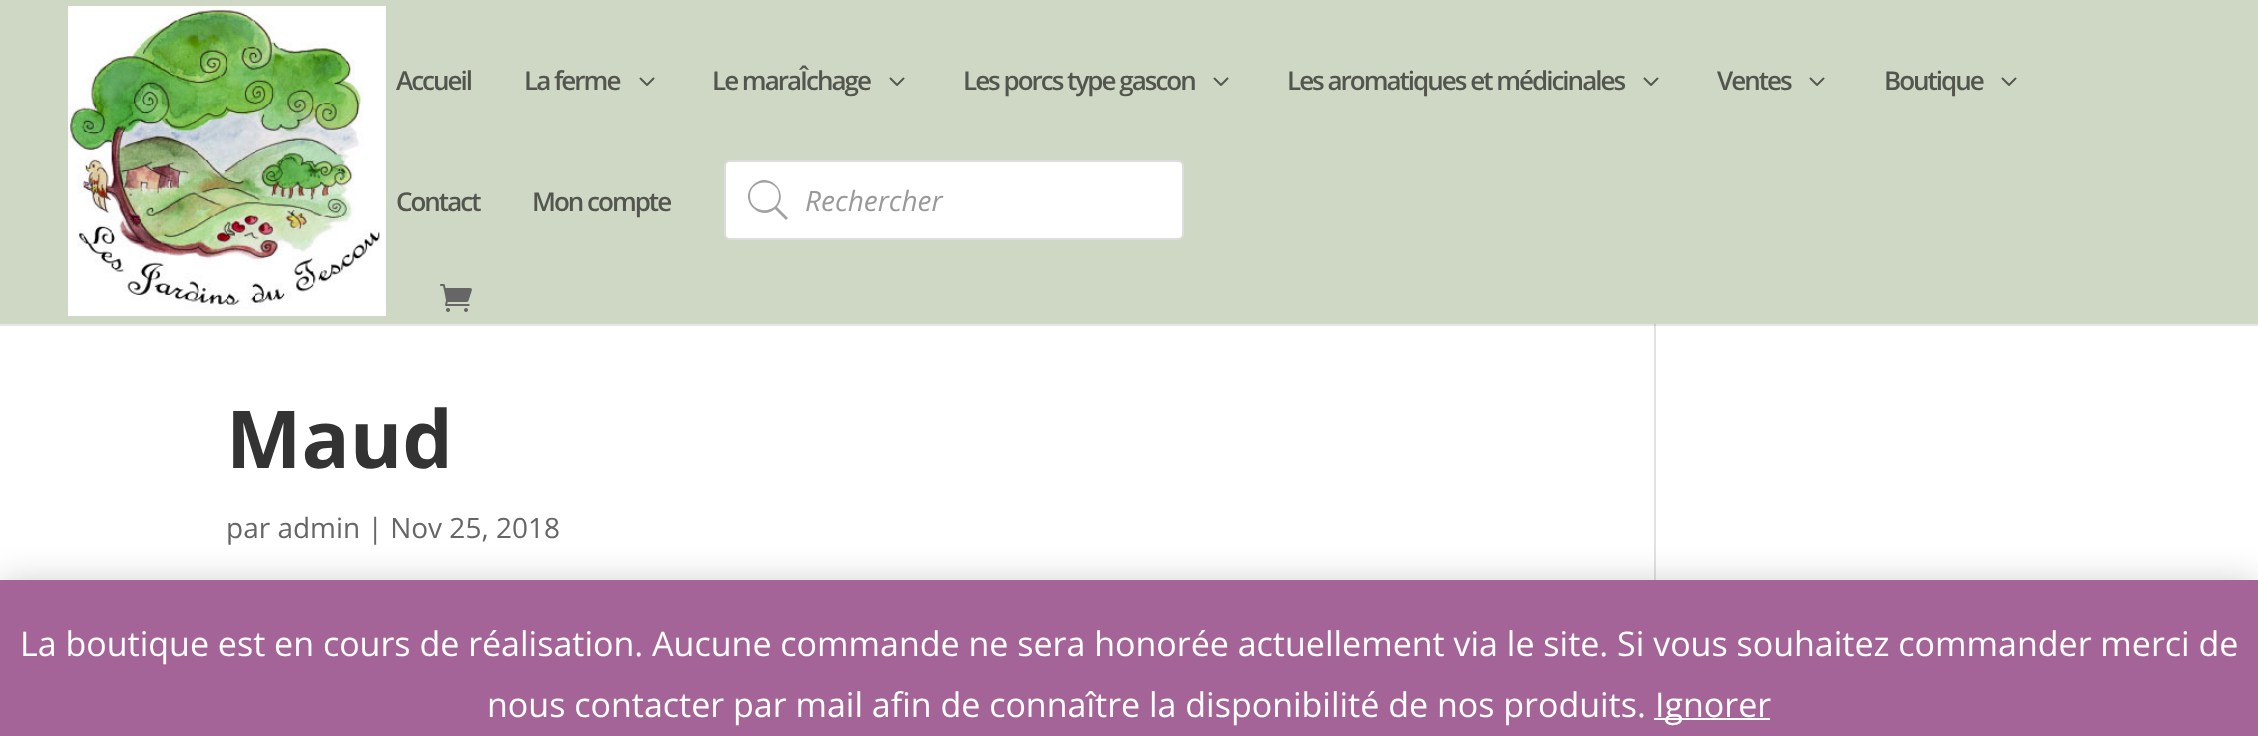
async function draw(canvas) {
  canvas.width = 2258
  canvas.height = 736
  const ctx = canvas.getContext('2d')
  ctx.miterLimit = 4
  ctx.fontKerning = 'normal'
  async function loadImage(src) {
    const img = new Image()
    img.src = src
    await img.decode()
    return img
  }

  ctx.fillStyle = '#fff'
  ctx.fillRect(0, 0, 2258, 736)
  ctx.fillStyle = '#e6e6e6'
  ctx.fillRect(0, 324, 2258, 2)
  ctx.fillStyle = '#cfd8c5'
  ctx.fillRect(0, 0, 2258, 324)
  ctx.drawImage(await loadImage('image0.png'), 68, 6, 318, 310)
  ctx.letterSpacing = '-2px'
  ctx.font = '600 26px Open Sans'
  ctx.fillStyle = '#53564f'
  ctx.fillText('Accueil', 396, 90)
  ctx.fillText('La ferme', 524, 90)
  ctx.drawImage(await loadImage('image1.png'), 639, 77, 16, 9)
  ctx.fillText('Le maraÎchage', 712, 90)
  ctx.drawImage(await loadImage('image1.png'), 889, 77, 16, 9)
  ctx.fillText('Les porcs type gascon', 963, 90)
  ctx.drawImage(await loadImage('image1.png'), 1213, 77, 16, 9)
  ctx.fillText('Les aromatiques et médicinales', 1287, 90)
  ctx.drawImage(await loadImage('image1.png'), 1643, 77, 16, 9)
  ctx.fillText('Ventes', 1717, 90)
  ctx.drawImage(await loadImage('image1.png'), 1809, 77, 16, 9)
  ctx.fillText('Boutique', 1884, 90)
  ctx.drawImage(await loadImage('image1.png'), 2001, 77, 16, 9)
  ctx.fillText('Contact', 396, 211)
  ctx.fillText('Mon compte', 532, 211)
  ctx.fillStyle = '#fff'
  ctx.beginPath()
  ctx.roundRect(725, 161, 458, 78, 5)
  ctx.fill()
  ctx.strokeStyle = '#ddd'
  ctx.lineWidth = 2
  ctx.stroke()
  ctx.fillStyle = '#a2a2a2'
  ctx.beginPath()
  ctx.moveTo(788, 218)
  ctx.lineTo(777, 207)
  ctx.bezierCurveTo(790, 192, 768, 170, 753, 185)
  ctx.bezierCurveTo(738, 200, 760, 222, 775, 209)
  ctx.lineTo(786, 220)
  ctx.closePath()
  ctx.moveTo(750, 196)
  ctx.bezierCurveTo(750, 178, 779, 178, 779, 196)
  ctx.bezierCurveTo(779, 215, 750, 215, 750, 196)
  ctx.closePath()
  ctx.fill()
  ctx.letterSpacing = '0px'
  ctx.font = 'italic 28px Open Sans'
  ctx.fillStyle = '#999'
  ctx.fillText('Rechercher', 805, 211)
  ctx.drawImage(await loadImage('image2.png'), 440, 284, 32, 28)
  ctx.font = 'bold 80px Open Sans'
  ctx.fillStyle = '#333'
  ctx.fillText('Maud', 226, 468)
  ctx.font = '28px Open Sans'
  ctx.fillStyle = '#666'
  ctx.fillText('par admin | Nov 25, 2018', 226, 538)
  ctx.fillStyle = '#e2e2e2'
  ctx.fillRect(1654, 326, 2, 254)
  ctx.fillStyle = '#cbcbcb'
  ctx.fillRect(1654, 324, 2, 2)
  ctx.fillStyle = '#00000033'
  ctx.filter = 'blur(17px)'
  ctx.beginPath()
  ctx.rect(0, 582, 2258, 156)
  ctx.fill()
  ctx.filter = 'none'
  ctx.fillStyle = '#a46497'
  ctx.fillRect(0, 580, 2258, 156)
  ctx.font = '34px Open Sans'
  ctx.fillStyle = '#fff'
  ctx.fillText('La boutique est en cours de réalisation. Aucune commande ne sera honorée actuellement via le site. Si vous souhaitez commander merci de', 20, 656)
  ctx.fillText('nous contacter par mail afin de connaître la disponibilité de nos produits.', 487, 717)
  ctx.fillRect(1654, 718, 116, 2)
  ctx.fillText('Ignorer', 1655, 717)
}

draw(document.querySelector('canvas'))
